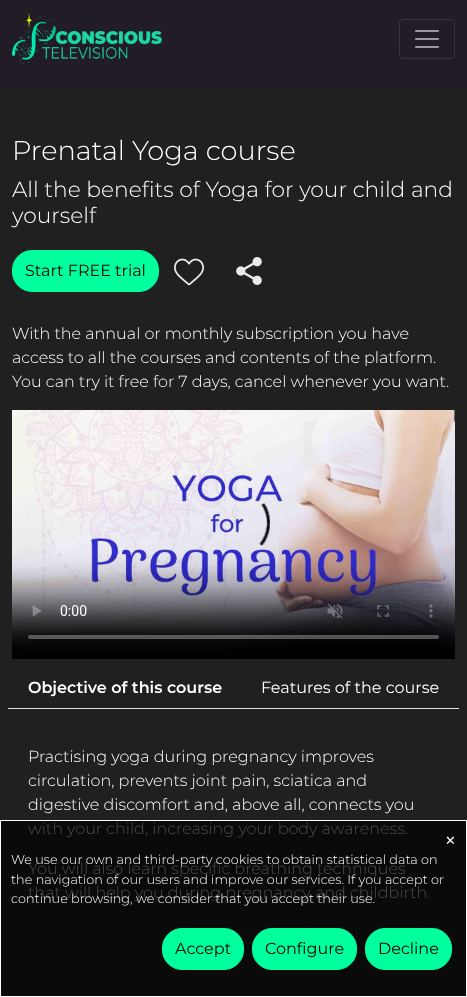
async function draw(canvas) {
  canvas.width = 467
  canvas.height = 997
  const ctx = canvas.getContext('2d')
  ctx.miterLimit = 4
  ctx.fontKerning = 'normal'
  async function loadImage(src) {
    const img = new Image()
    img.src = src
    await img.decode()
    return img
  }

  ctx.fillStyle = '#202020'
  ctx.fillRect(0, 0, 467, 997)
  ctx.fillStyle = '#221c26'
  ctx.fillRect(0, 0, 467, 87)
  ctx.drawImage(await loadImage('image0.png'), 12, 13, 150, 52)
  ctx.beginPath()
  ctx.roundRect(399.5, 19.5, 55, 39, 3.5)
  ctx.strokeStyle = '#38333c'
  ctx.stroke()
  ctx.drawImage(await loadImage('image1.png'), 415, 30, 24, 18)
  ctx.font = '300 27.25px Montserrat'
  ctx.fillStyle = '#fff'
  ctx.fillText('Prenatal Yoga course', 12, 160)
  ctx.font = '300 21.8px Montserrat'
  ctx.fillText('All the benefits of Yoga for your child and', 12, 197)
  ctx.fillText('yourself', 12, 223)
  ctx.fillStyle = '#00ff9d'
  ctx.beginPath()
  ctx.roundRect(12.5, 250.5, 146, 41, 19.5)
  ctx.fill()
  ctx.strokeStyle = '#00ff9d'
  ctx.stroke()
  ctx.font = '16px Montserrat'
  ctx.fillStyle = '#000'
  ctx.fillText('Start FREE trial', 25, 276)
  ctx.drawImage(await loadImage('image2.png'), 174, 258, 30, 28)
  ctx.drawImage(await loadImage('image3.png'), 236, 257, 26, 28)
  ctx.font = '300 16px Montserrat'
  ctx.fillStyle = '#fff'
  ctx.fillText('With the annual or monthly subscription you have', 12, 339)
  ctx.fillText('access to all the courses and contents of the platform.', 12, 363)
  ctx.fillText('You can try it free for 7 days, cancel whenever you want.', 12, 387)
  ctx.drawImage(await loadImage('image4.png'), 12, 410, 443, 249)
  ctx.fillStyle = '#dee2e6'
  ctx.fillRect(8, 708, 451, 1)
  ctx.font = '600 16px Montserrat'
  ctx.fillStyle = '#fff'
  ctx.fillText('Objective of this course', 28, 693)
  ctx.font = '16px Montserrat'
  ctx.fillText('Features of the course', 261, 693)
  ctx.font = '300 16px Montserrat'
  ctx.fillText('Practising yoga during pregnancy improves', 28, 762)
  ctx.fillText('circulation, prevents joint pain, sciatica and', 28, 786)
  ctx.fillText('digestive discomfort and, above all, connects you', 28, 810)
  ctx.fillStyle = '#0a0a0a'
  ctx.fillRect(1, 821, 465, 175)
  ctx.fillStyle = '#4d4d4d'
  ctx.fillText('with your child, increasing your body awareness.', 28, 834)
  ctx.fillText('You will also learn specific breathing techniques', 28, 874)
  ctx.fillText('that will help you during pregnancy and childbirth.', 28, 898)
  ctx.strokeStyle = '#fff'
  ctx.strokeRect(0.5, 820.5, 466, 176)
  ctx.font = '12.8px DejaVu Sans'
  ctx.fillStyle = '#fff'
  ctx.fillText('✕', 445, 845)
  ctx.font = '300 12.8px Montserrat'
  ctx.fillText('We use our own and third-party cookies to obtain statistical data on', 11, 864)
  ctx.fillText('the navigation of our users and improve our services. If you accept or', 11, 884)
  ctx.fillText('continue browsing, we consider that you accept their use.', 11, 903)
  ctx.fillStyle = '#00ff9d'
  ctx.beginPath()
  ctx.roundRect(162.5, 928.5, 81, 41, 19.5)
  ctx.fill()
  ctx.strokeStyle = '#00ff9d'
  ctx.stroke()
  ctx.font = '16px Montserrat'
  ctx.fillStyle = '#000'
  ctx.fillText('Accept', 175, 954)
  ctx.fillStyle = '#00ff9d'
  ctx.beginPath()
  ctx.roundRect(252.5, 928.5, 104, 41, 19.5)
  ctx.fill()
  ctx.stroke()
  ctx.fillStyle = '#000'
  ctx.fillText('Configure', 265, 954)
  ctx.fillStyle = '#00ff9d'
  ctx.beginPath()
  ctx.roundRect(365.5, 928.5, 86, 41, 19.5)
  ctx.fill()
  ctx.stroke()
  ctx.fillStyle = '#000'
  ctx.fillText('Decline', 378, 954)
}

draw(document.querySelector('canvas'))
